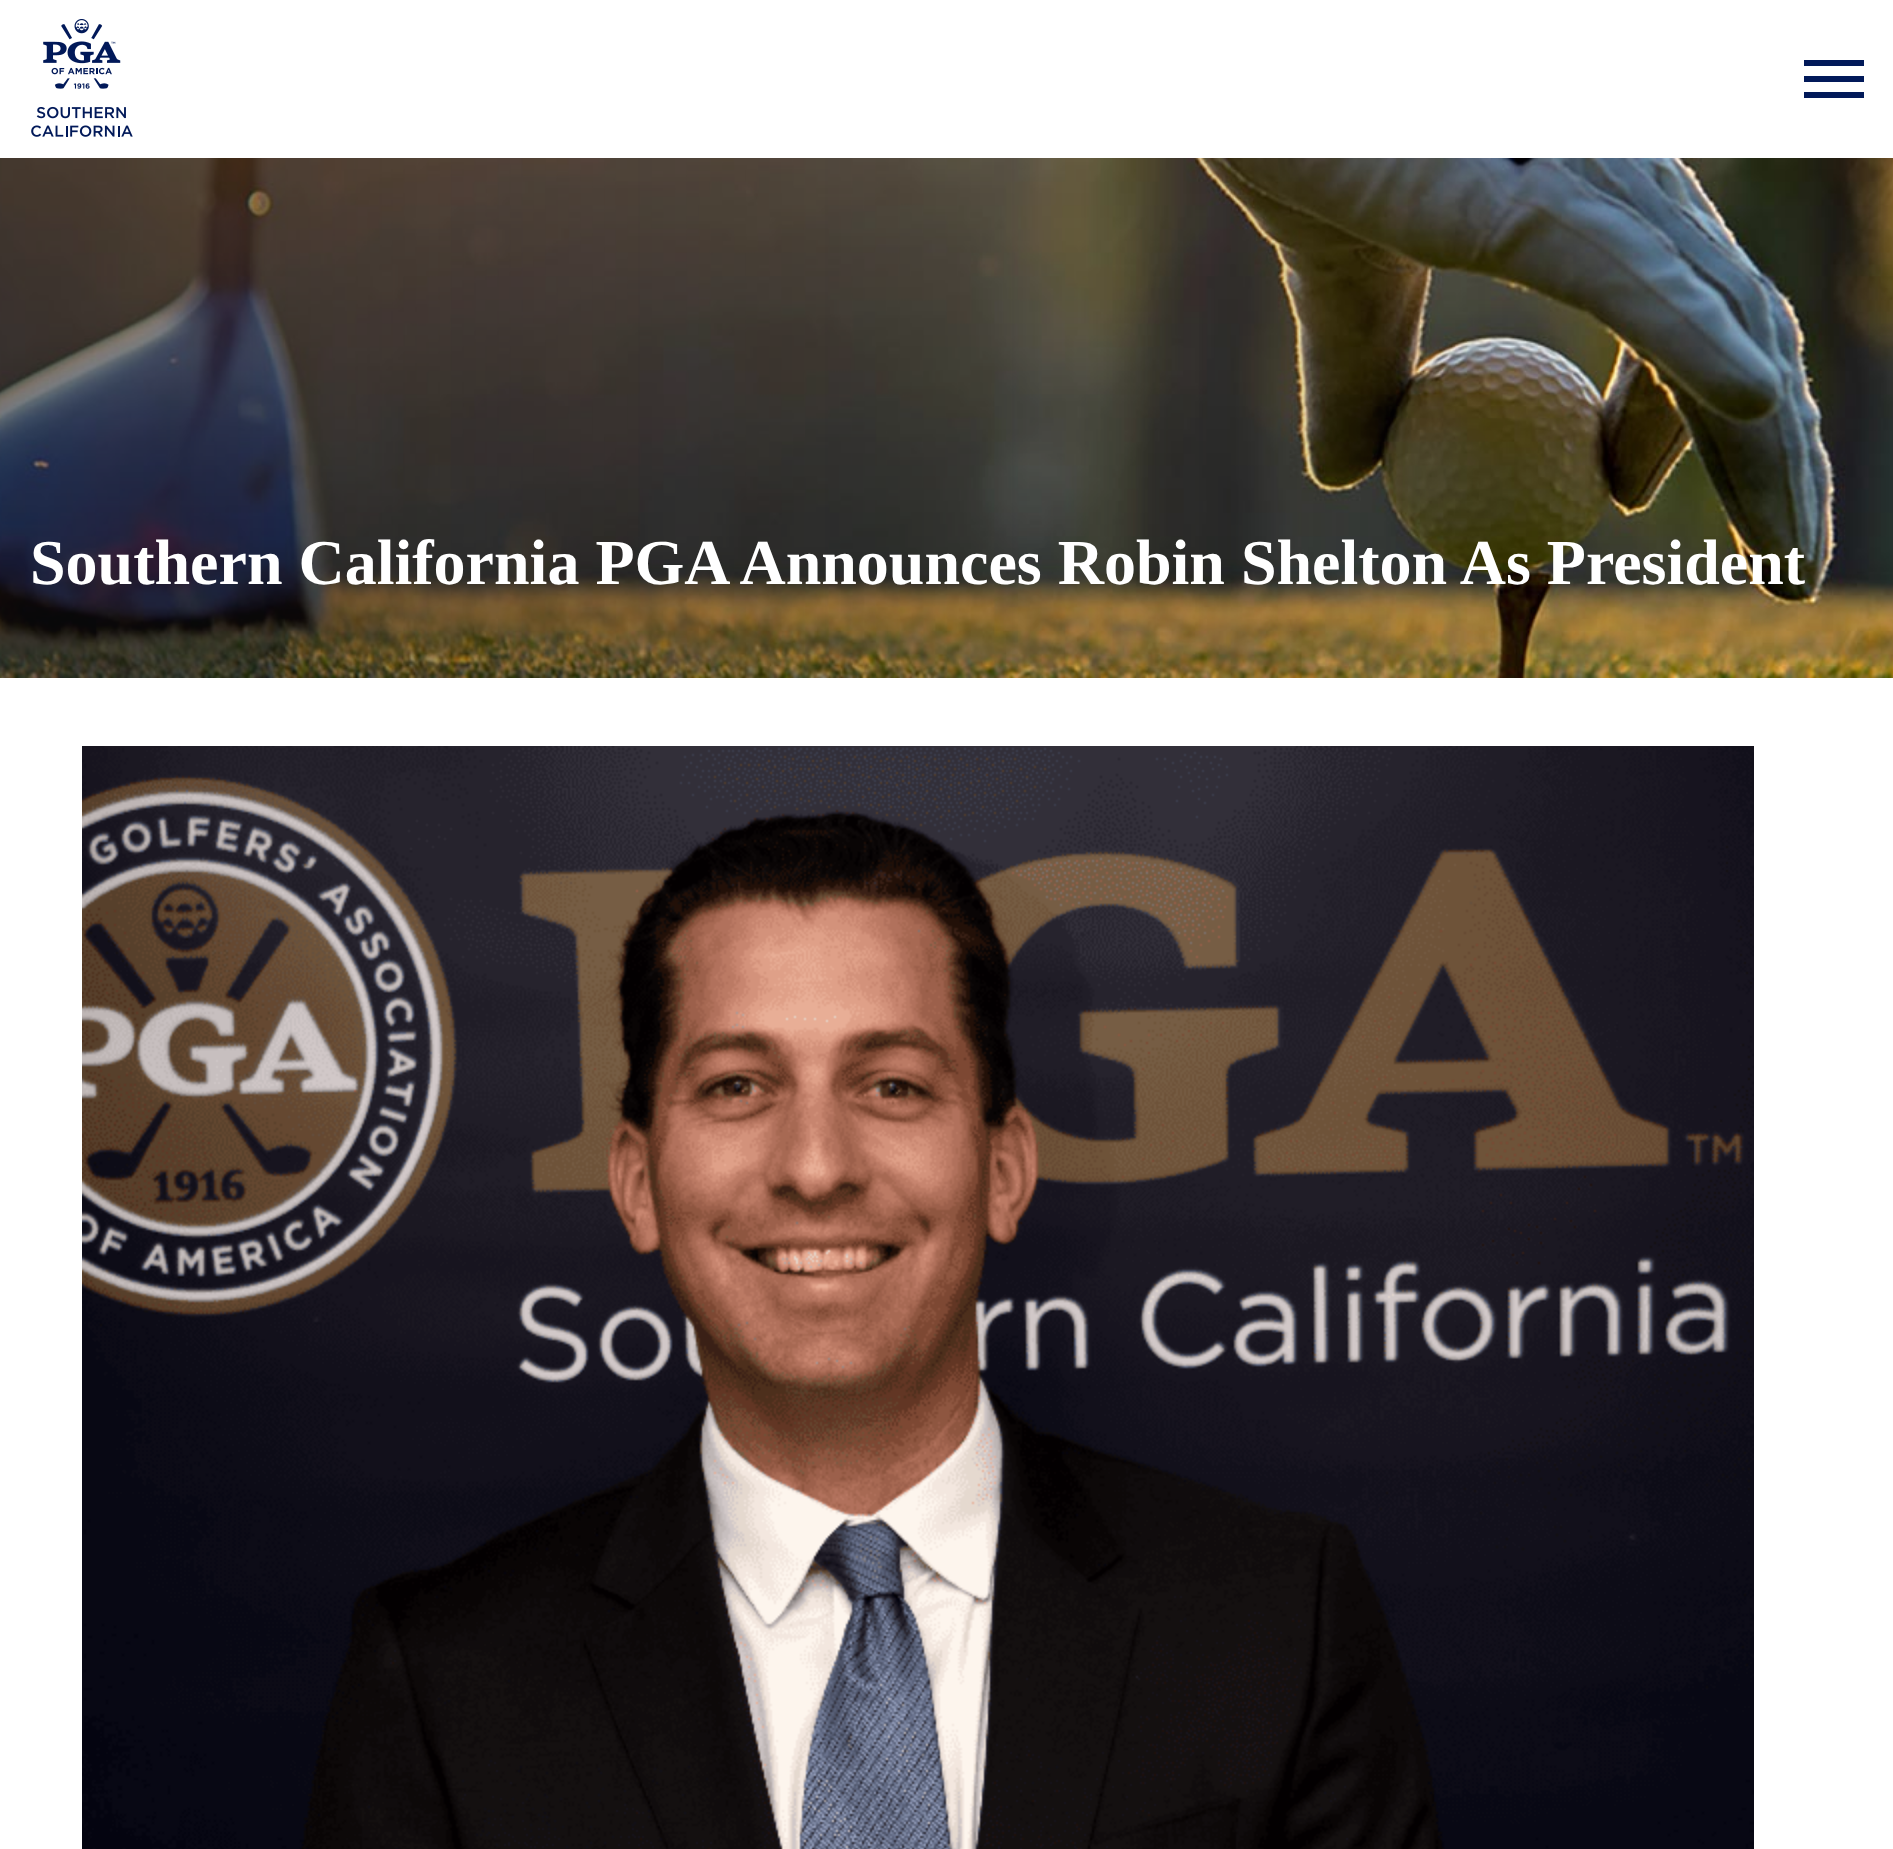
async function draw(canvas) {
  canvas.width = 1893
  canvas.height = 1849
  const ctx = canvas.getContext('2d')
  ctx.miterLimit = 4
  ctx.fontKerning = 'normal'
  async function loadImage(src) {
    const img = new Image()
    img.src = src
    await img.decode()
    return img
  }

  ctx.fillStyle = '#fff'
  ctx.fillRect(0, 0, 1893, 1849)
  ctx.drawImage(await loadImage('image0.png'), 31, 19, 102, 118)
  ctx.fillStyle = '#011959'
  ctx.fillRect(1804, 60, 60, 6)
  ctx.fillRect(1804, 76, 60, 6)
  ctx.fillRect(1804, 92, 60, 6)
  ctx.drawImage(await loadImage('image1.png'), 0, 158, 1893, 520)
  ctx.font = 'bold 64px Liberation Serif'
  ctx.fillStyle = '#fff'
  ctx.fillText('Southern California PGA Announces Robin Shelton As President', 30, 584)
  ctx.drawImage(await loadImage('image2.png'), 82, 746, 1672, 1103)
}

draw(document.querySelector('canvas'))
